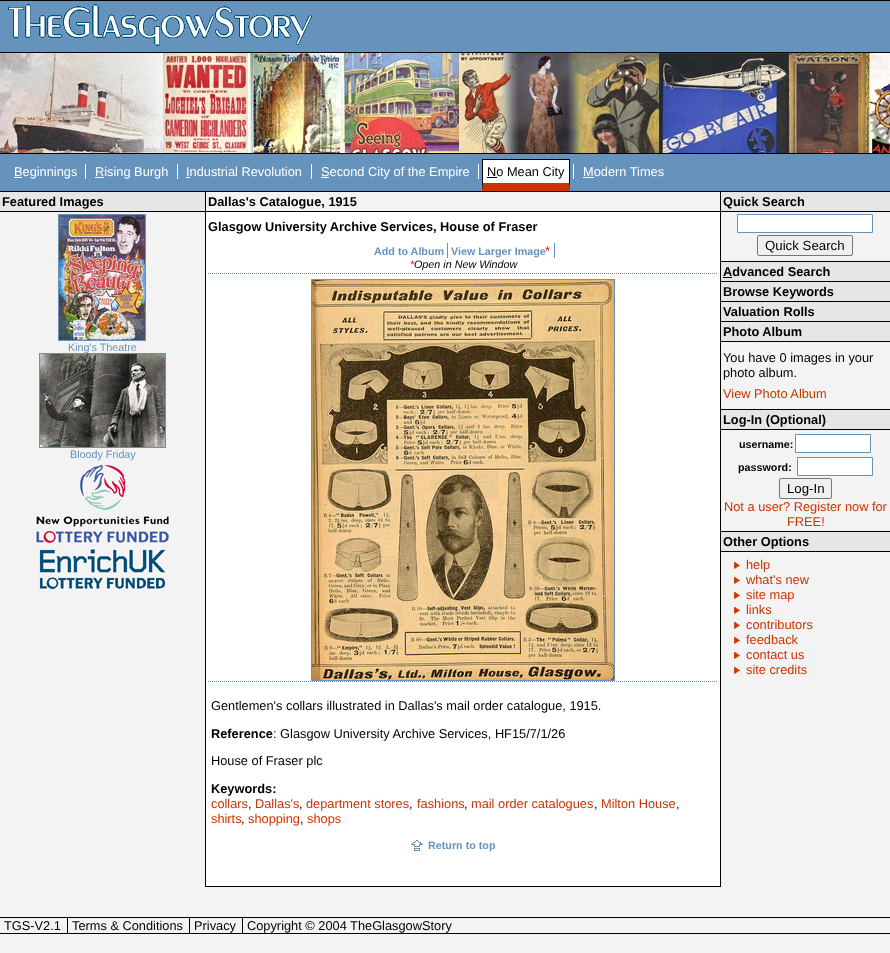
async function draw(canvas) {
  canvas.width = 890
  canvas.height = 953
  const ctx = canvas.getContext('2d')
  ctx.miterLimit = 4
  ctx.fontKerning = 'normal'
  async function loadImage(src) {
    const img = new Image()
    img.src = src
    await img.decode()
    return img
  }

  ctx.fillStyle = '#f3f3f3'
  ctx.fillRect(0, 0, 890, 953)
  ctx.fillStyle = '#6693bc'
  ctx.fillRect(0, 1, 890, 51)
  ctx.fillStyle = '#000'
  ctx.fillRect(0, 0, 890, 1)
  ctx.drawImage(await loadImage('image0.png'), 8, 4, 304, 42)
  ctx.drawImage(await loadImage('image1.png'), 0, 53, 890, 100)
  ctx.fillRect(0, 52, 890, 1)
  ctx.fillRect(0, 153, 890, 1)
  ctx.fillStyle = '#6693bc'
  ctx.fillRect(0, 154, 890, 37)
  ctx.fillStyle = '#000'
  ctx.fillRect(0, 191, 890, 1)
  ctx.fillStyle = '#fff'
  ctx.fillRect(14, 177, 8, 1)
  ctx.font = '12.8px Liberation Sans'
  ctx.fillText('Beginnings', 14, 176)
  ctx.fillRect(95, 177, 9, 1)
  ctx.fillText('Rising Burgh', 95, 176)
  ctx.fillRect(85, 164, 1, 15)
  ctx.fillText('Industrial Revolution', 186, 176)
  ctx.fillRect(177, 164, 1, 15)
  ctx.fillRect(186, 177, 4, 1)
  ctx.fillRect(321, 177, 8, 1)
  ctx.fillText('Second City of the Empire', 321, 176)
  ctx.fillRect(311, 164, 1, 15)
  ctx.fillRect(483, 160, 86, 23)
  ctx.fillStyle = '#000'
  ctx.fillRect(487, 177, 10, 1)
  ctx.fillText('No Mean City', 487, 176)
  ctx.fillStyle = '#fff'
  ctx.fillRect(478, 164, 1, 15)
  ctx.fillStyle = '#000'
  ctx.fillRect(482, 159, 88, 1)
  ctx.fillStyle = '#c30'
  ctx.beginPath()
  ctx.moveTo(497, 191)
  ctx.lineTo(482, 191)
  ctx.lineTo(483, 183)
  ctx.lineTo(497, 183)
  ctx.closePath()
  ctx.fill()
  ctx.fillStyle = '#000'
  ctx.beginPath()
  ctx.moveTo(482, 191)
  ctx.lineTo(482, 159)
  ctx.lineTo(483, 160)
  ctx.lineTo(483, 183)
  ctx.closePath()
  ctx.fill()
  ctx.beginPath()
  ctx.moveTo(570, 159)
  ctx.lineTo(570, 191)
  ctx.lineTo(569, 183)
  ctx.lineTo(569, 160)
  ctx.closePath()
  ctx.fill()
  ctx.fillStyle = '#c30'
  ctx.beginPath()
  ctx.moveTo(570, 191)
  ctx.lineTo(497, 191)
  ctx.lineTo(497, 183)
  ctx.lineTo(569, 183)
  ctx.closePath()
  ctx.fill()
  ctx.fillStyle = '#fff'
  ctx.fillText('Modern Times', 583, 176)
  ctx.fillRect(573, 164, 1, 15)
  ctx.fillRect(583, 177, 11, 1)
  ctx.fillStyle = '#e6e6e6'
  ctx.fillRect(0, 192, 205, 19)
  ctx.fillStyle = '#000'
  ctx.fillRect(0, 211, 205, 1)
  ctx.font = 'bold 12.8px Liberation Sans'
  ctx.fillText('Featured Images', 2, 206)
  ctx.strokeStyle = '#6693bc'
  ctx.strokeRect(58.5, 214.5, 87, 126)
  ctx.drawImage(await loadImage('image2.png'), 59, 215, 86, 125)
  ctx.font = '10.75px Liberation Sans'
  ctx.fillStyle = '#6693bc'
  ctx.fillText('King\'s Theatre', 68, 351)
  ctx.strokeRect(39.5, 353.5, 126, 94)
  ctx.drawImage(await loadImage('image3.png'), 40, 354, 125, 93)
  ctx.fillText('Bloody Friday', 70, 458)
  ctx.drawImage(await loadImage('image4.png'), 35, 463, 135, 81)
  ctx.drawImage(await loadImage('image5.png'), 39, 548, 127, 42)
  ctx.fillStyle = '#fff'
  ctx.fillRect(206, 212, 514, 674)
  ctx.fillStyle = '#000'
  ctx.fillRect(720, 192, 1, 695)
  ctx.fillRect(205, 886, 516, 1)
  ctx.fillRect(205, 192, 1, 695)
  ctx.fillRect(206, 211, 514, 1)
  ctx.font = 'bold 12.8px Liberation Sans'
  ctx.fillText('Dallas\'s Catalogue, 1915', 208, 206)
  ctx.fillText('Glasgow University Archive Services, House of Fraser', 208, 231)
  ctx.beginPath()
  ctx.moveTo(208, 273.5)
  ctx.lineTo(718, 273.5)
  ctx.setLineDash([1, 1])
  ctx.stroke()
  ctx.font = 'bold 10.75px Liberation Sans'
  ctx.fillStyle = '#6693bc'
  ctx.fillText('Add to Album', 374, 255)
  ctx.fillText('View Larger Image', 451, 255)
  ctx.fillRect(447, 243, 1, 15)
  ctx.font = '12.8px Liberation Sans'
  ctx.fillStyle = '#f00'
  ctx.fillText('*', 545, 255)
  ctx.fillStyle = '#6693bc'
  ctx.fillRect(554, 243, 1, 15)
  ctx.font = 'italic 10.75px Liberation Sans'
  ctx.fillStyle = '#f00'
  ctx.fillText('*', 410, 268)
  ctx.fillStyle = '#000'
  ctx.fillText('Open in New Window', 414, 268)
  ctx.setLineDash([])
  ctx.strokeRect(311.5, 279.5, 303, 401)
  ctx.drawImage(await loadImage('image6.png'), 312, 280, 302, 400)
  ctx.beginPath()
  ctx.moveTo(208, 681.5)
  ctx.lineTo(718, 681.5)
  ctx.setLineDash([1, 1])
  ctx.stroke()
  ctx.font = '12.8px Liberation Sans'
  ctx.fillText('Gentlemen\'s collars illustrated in Dallas\'s mail order catalogue, 1915.', 211, 710)
  ctx.font = 'bold 12.8px Liberation Sans'
  ctx.fillText('Reference', 211, 738)
  ctx.font = '12.8px Liberation Sans'
  ctx.fillText(': Glasgow University Archive Services, HF15/7/1/26', 273, 738)
  ctx.fillText('House of Fraser plc', 211, 765)
  ctx.font = 'bold 12.8px Liberation Sans'
  ctx.fillText('Keywords:', 211, 793)
  ctx.font = '12.8px Liberation Sans'
  ctx.fillStyle = '#c30'
  ctx.fillText('collars', 211, 808)
  ctx.fillStyle = '#000'
  ctx.fillText(',', 248, 808)
  ctx.fillStyle = '#c30'
  ctx.fillText('Dallas\'s', 255, 808)
  ctx.fillStyle = '#000'
  ctx.fillText(',', 299, 808)
  ctx.fillStyle = '#c30'
  ctx.fillText('department stores', 306, 808)
  ctx.fillStyle = '#000'
  ctx.fillText(',', 409, 808)
  ctx.fillStyle = '#c30'
  ctx.fillText('fashions', 417, 808)
  ctx.fillStyle = '#000'
  ctx.fillText(',', 464, 808)
  ctx.fillStyle = '#c30'
  ctx.fillText('mail order catalogues', 471, 808)
  ctx.fillStyle = '#000'
  ctx.fillText(',', 594, 808)
  ctx.fillStyle = '#c30'
  ctx.fillText('Milton House', 601, 808)
  ctx.fillStyle = '#000'
  ctx.fillText(',', 676, 808)
  ctx.fillStyle = '#c30'
  ctx.fillText('shirts', 211, 823)
  ctx.fillStyle = '#000'
  ctx.fillText(',', 241, 823)
  ctx.fillStyle = '#c30'
  ctx.fillText('shopping', 248, 823)
  ctx.fillStyle = '#000'
  ctx.fillText(',', 300, 823)
  ctx.fillStyle = '#c30'
  ctx.fillText('shops', 307, 823)
  ctx.drawImage(await loadImage('image7.png'), 411, 840, 12, 11)
  ctx.font = 'bold 10.75px Liberation Sans'
  ctx.fillStyle = '#6693bc'
  ctx.fillText('Return to top', 428, 849)
  ctx.fillStyle = '#e6e6e6'
  ctx.fillRect(721, 192, 169, 19)
  ctx.fillStyle = '#000'
  ctx.fillRect(721, 211, 169, 1)
  ctx.font = 'bold 12.8px Liberation Sans'
  ctx.fillText('Quick Search', 723, 206)
  ctx.fillStyle = '#fff'
  ctx.beginPath()
  ctx.rect(737.5, 214.5, 135, 18)
  ctx.fill()
  ctx.setLineDash([])
  ctx.stroke()
  ctx.fillStyle = '#efefef'
  ctx.beginPath()
  ctx.roundRect(757.5, 235.5, 95, 20, 1.5)
  ctx.fill()
  ctx.strokeStyle = '#767676'
  ctx.stroke()
  ctx.font = '13.25px Liberation Sans'
  ctx.fillStyle = '#000'
  ctx.fillText('Quick Search', 765, 250)
  ctx.fillStyle = '#e6e6e6'
  ctx.fillRect(721, 262, 169, 19)
  ctx.fillStyle = '#000'
  ctx.fillRect(721, 261, 169, 1)
  ctx.font = 'bold 12.8px Liberation Sans'
  ctx.fillText('Advanced Search', 723, 276)
  ctx.fillRect(723, 277, 9, 1)
  ctx.fillStyle = '#e6e6e6'
  ctx.fillRect(721, 282, 169, 19)
  ctx.fillStyle = '#000'
  ctx.fillRect(721, 281, 169, 1)
  ctx.fillText('Browse Keywords', 723, 296)
  ctx.fillStyle = '#e6e6e6'
  ctx.fillRect(721, 302, 169, 19)
  ctx.fillStyle = '#000'
  ctx.fillRect(721, 301, 169, 1)
  ctx.fillText('Valuation Rolls', 723, 316)
  ctx.fillStyle = '#e6e6e6'
  ctx.fillRect(721, 322, 169, 19)
  ctx.fillStyle = '#000'
  ctx.fillRect(721, 321, 169, 1)
  ctx.fillRect(721, 341, 169, 1)
  ctx.fillText('Photo Album', 723, 336)
  ctx.font = '12.8px Liberation Sans'
  ctx.fillText('You have 0 images in your', 723, 362)
  ctx.fillText('photo album.', 723, 377)
  ctx.fillStyle = '#c30'
  ctx.fillText('View Photo Album', 723, 398)
  ctx.fillStyle = '#e6e6e6'
  ctx.fillRect(721, 410, 169, 19)
  ctx.fillStyle = '#000'
  ctx.fillRect(721, 409, 169, 1)
  ctx.fillRect(721, 429, 169, 1)
  ctx.font = 'bold 12.8px Liberation Sans'
  ctx.fillText('Log-In (Optional)', 723, 424)
  ctx.font = 'bold 10.75px Liberation Sans'
  ctx.fillText('username:', 739, 448)
  ctx.fillStyle = '#fff'
  ctx.beginPath()
  ctx.rect(795.5, 434.5, 75, 18)
  ctx.fill()
  ctx.strokeStyle = '#6693bc'
  ctx.stroke()
  ctx.fillStyle = '#000'
  ctx.fillText('password:', 738, 471)
  ctx.fillStyle = '#fff'
  ctx.beginPath()
  ctx.rect(797.5, 457.5, 75, 18)
  ctx.fill()
  ctx.stroke()
  ctx.fillStyle = '#efefef'
  ctx.beginPath()
  ctx.roundRect(779.5, 478.5, 52, 20, 1.5)
  ctx.fill()
  ctx.strokeStyle = '#767676'
  ctx.stroke()
  ctx.font = '13.25px Liberation Sans'
  ctx.fillStyle = '#000'
  ctx.fillText('Log-In', 787, 493)
  ctx.font = '12.8px Liberation Sans'
  ctx.fillStyle = '#c30'
  ctx.fillText('Not a user? Register now for', 724, 511)
  ctx.fillText('FREE!', 787, 526)
  ctx.fillStyle = '#e6e6e6'
  ctx.fillRect(721, 532, 169, 19)
  ctx.fillStyle = '#000'
  ctx.fillRect(721, 531, 169, 1)
  ctx.fillRect(721, 551, 169, 1)
  ctx.font = 'bold 12.8px Liberation Sans'
  ctx.fillText('Other Options', 723, 546)
  ctx.drawImage(await loadImage('image8.png'), 734, 562, 6, 7)
  ctx.font = '12.8px Liberation Sans'
  ctx.fillStyle = '#c30'
  ctx.fillText('help', 746, 569)
  ctx.drawImage(await loadImage('image8.png'), 734, 577, 6, 7)
  ctx.fillText('what\'s new', 746, 584)
  ctx.drawImage(await loadImage('image8.png'), 734, 592, 6, 7)
  ctx.fillText('site map', 746, 599)
  ctx.drawImage(await loadImage('image8.png'), 734, 607, 6, 7)
  ctx.fillText('links', 746, 614)
  ctx.drawImage(await loadImage('image8.png'), 734, 622, 6, 7)
  ctx.fillText('contributors', 746, 629)
  ctx.drawImage(await loadImage('image8.png'), 734, 637, 6, 7)
  ctx.fillText('feedback', 746, 644)
  ctx.drawImage(await loadImage('image8.png'), 734, 652, 6, 7)
  ctx.fillText('contact us', 746, 659)
  ctx.drawImage(await loadImage('image8.png'), 734, 667, 6, 7)
  ctx.fillText('site credits', 746, 674)
  ctx.fillStyle = '#000'
  ctx.fillRect(0, 917, 890, 1)
  ctx.fillRect(0, 933, 890, 1)
  ctx.fillText('TGS-V2.1', 4, 930)
  ctx.fillText('Terms & Conditions', 72, 930)
  ctx.fillRect(67, 918, 1, 15)
  ctx.fillText('Privacy', 194, 930)
  ctx.fillRect(189, 918, 1, 15)
  ctx.fillText('Copyright © 2004 TheGlasgowStory', 247, 930)
  ctx.fillRect(242, 918, 1, 15)
}

draw(document.querySelector('canvas'))
